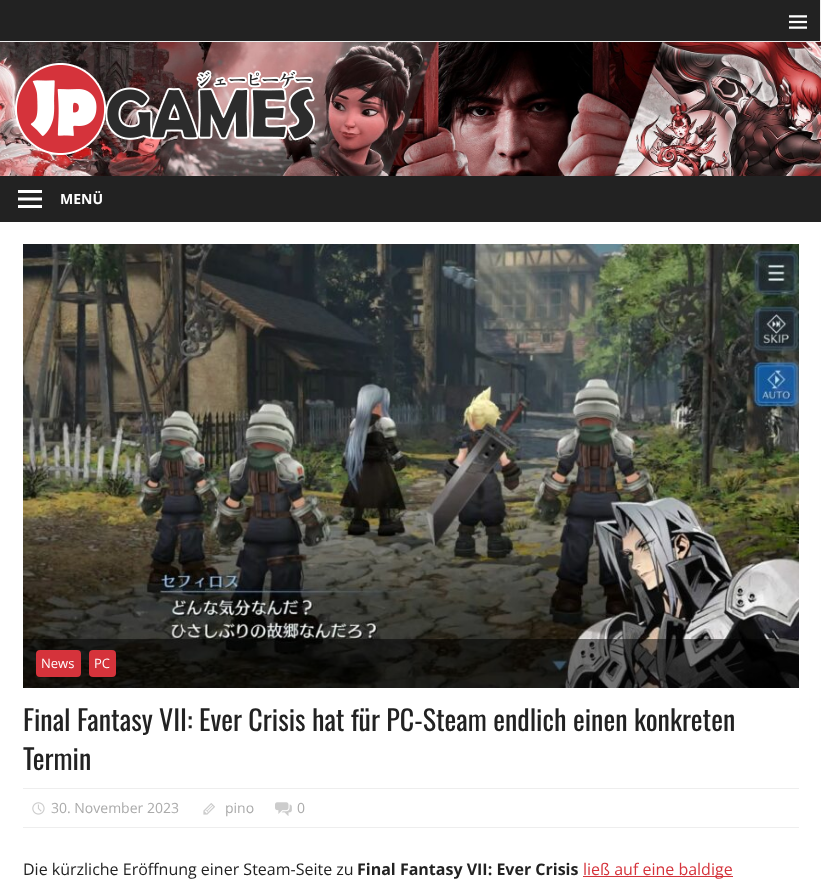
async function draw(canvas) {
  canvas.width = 821
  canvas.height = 880
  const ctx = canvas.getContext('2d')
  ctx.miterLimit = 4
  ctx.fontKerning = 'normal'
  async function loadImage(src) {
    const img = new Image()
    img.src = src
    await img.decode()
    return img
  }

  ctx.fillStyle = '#fff'
  ctx.fillRect(0, 0, 821, 880)
  ctx.fillStyle = '#222'
  ctx.fillRect(0, 0, 820, 41)
  ctx.fillStyle = '#eee'
  ctx.fillRect(0, 41, 821, 1)
  ctx.drawImage(await loadImage('image0.png'), 789, 15, 18, 14)
  ctx.fillRect(820, 0, 1, 41)
  ctx.drawImage(await loadImage('image1.png'), 0, 42, 821, 134)
  ctx.drawImage(await loadImage('image2.png'), 15, 63, 300, 92)
  ctx.fillStyle = '#222'
  ctx.fillRect(0, 176, 821, 46)
  ctx.drawImage(await loadImage('image3.png'), 18, 190, 24, 18)
  ctx.font = 'bold 14px Open Sans'
  ctx.fillStyle = '#fff'
  ctx.fillText('MENÜ', 60, 204)
  ctx.drawImage(await loadImage('image4.png'), 23, 244, 776, 444)
  ctx.fillStyle = '#00000080'
  ctx.fillRect(23, 639, 776, 49)
  ctx.fillStyle = '#d5333b'
  ctx.beginPath()
  ctx.roundRect(36, 650, 45, 27, 4)
  ctx.fill()
  ctx.font = '13px Open Sans'
  ctx.fillStyle = '#fff'
  ctx.fillText('News', 41, 668)
  ctx.fillStyle = '#d5333b'
  ctx.beginPath()
  ctx.roundRect(89, 650, 27, 27, 4)
  ctx.fill()
  ctx.fillStyle = '#fff'
  ctx.fillText('PC', 94, 668)
  ctx.font = '28px Oswald'
  ctx.fillStyle = '#222'
  ctx.fillText('Final Fantasy VII: Ever Crisis hat für PC-Steam endlich einen konkreten', 23, 731)
  ctx.fillText('Termin', 23, 770)
  ctx.fillStyle = '#eee'
  ctx.fillRect(23, 788, 776, 1)
  ctx.fillRect(23, 827, 776, 1)
  ctx.drawImage(await loadImage('image5.png'), 32, 802, 13, 13)
  ctx.font = '14px Open Sans'
  ctx.fillStyle = '#aaa'
  ctx.fillText('30. November 2023', 51, 813)
  ctx.drawImage(await loadImage('image6.png'), 203, 803, 12, 12)
  ctx.fillText('pino', 225, 813)
  ctx.drawImage(await loadImage('image7.png'), 275, 802, 17, 14)
  ctx.fillText('0', 297, 813)
  ctx.font = '16px Open Sans'
  ctx.fillStyle = '#222'
  ctx.fillText('Die kürzliche Eröffnung einer Steam-Seite zu', 23, 875)
  ctx.font = 'bold 16px Open Sans'
  ctx.fillText('Final Fantasy VII: Ever Crisis', 357, 875)
  ctx.fillStyle = '#d5333b'
  ctx.fillRect(583, 876, 150, 1)
  ctx.font = '16px Open Sans'
  ctx.fillText('ließ auf eine baldige', 583, 875)
}

draw(document.querySelector('canvas'))
